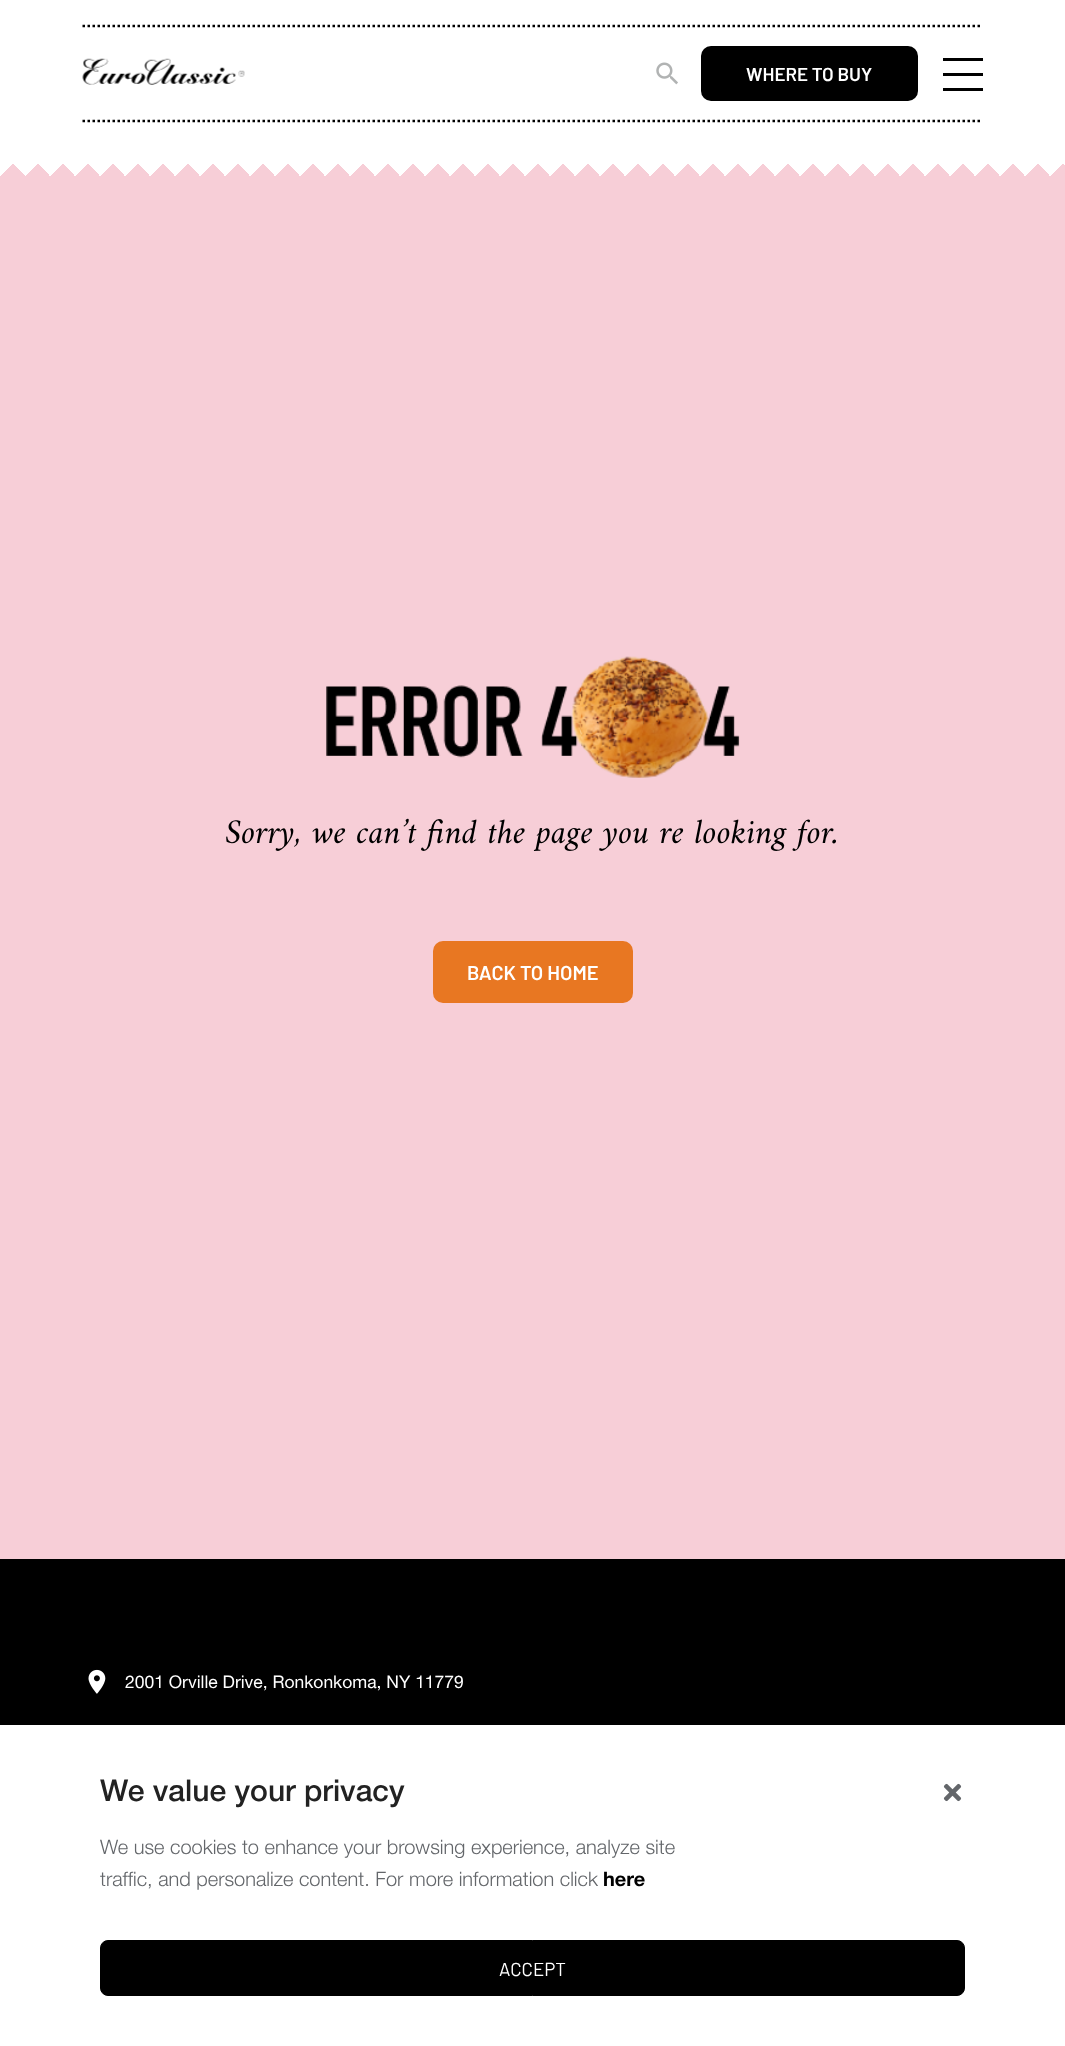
async function draw(canvas) {
  canvas.width = 1065
  canvas.height = 2046
  const ctx = canvas.getContext('2d')
  ctx.miterLimit = 4
  ctx.fontKerning = 'normal'
  async function loadImage(src) {
    const img = new Image()
    img.src = src
    await img.decode()
    return img
  }

  ctx.fillStyle = '#f7ced7'
  ctx.fillRect(0, 0, 1065, 2046)
  ctx.fillStyle = '#fff'
  ctx.fillRect(0, 0, 1065, 151)
  ctx.beginPath()
  ctx.moveTo(82.5, 26)
  ctx.lineTo(982.5, 26)
  ctx.strokeStyle = '#000'
  ctx.lineWidth = 2.5
  ctx.setLineDash([2.5, 2.5])
  ctx.stroke()
  ctx.beginPath()
  ctx.moveTo(82.5, 121)
  ctx.lineTo(982.5, 121)
  ctx.stroke()
  ctx.drawImage(await loadImage('image0.png'), 82, 58, 163, 27)
  ctx.drawImage(await loadImage('image1.png'), 656, 62, 22, 23)
  ctx.fillStyle = '#000'
  ctx.beginPath()
  ctx.roundRect(701, 46, 217, 55, 10)
  ctx.fill()
  ctx.font = '600 18.75px Barlow'
  ctx.fillStyle = '#fff'
  ctx.fillText('WHERE TO BUY', 746, 81)
  ctx.fillStyle = '#000'
  ctx.fillRect(943, 58, 40, 3)
  ctx.fillRect(943, 73, 40, 3)
  ctx.fillRect(943, 88, 40, 3)
  ctx.drawImage(await loadImage('image2.png'), 0, 151, 1065, 25)
  ctx.drawImage(await loadImage('image3.png'), 13, 152, 1052, 24)
  ctx.drawImage(await loadImage('image4.png'), 326, 656, 414, 122)
  ctx.font = 'italic 35px Amiri'
  ctx.fillText('Sorry, we can’t find the page you re looking for.', 225, 843)
  ctx.fillStyle = '#e87722'
  ctx.beginPath()
  ctx.roundRect(433, 941, 200, 62, 10)
  ctx.fill()
  ctx.font = '600 20px Barlow'
  ctx.fillStyle = '#fff'
  ctx.fillText('BACK TO HOME', 467, 980)
  ctx.fillStyle = '#000'
  ctx.fillRect(0, 1559, 1065, 166)
  ctx.drawImage(await loadImage('image5.png'), 88, 1669, 18, 25)
  ctx.font = '17.5px Helvetica Neue'
  ctx.fillStyle = '#fff'
  ctx.fillText('2001 Orville Drive, Ronkonkoma, NY 11779', 125, 1688)
  ctx.fillRect(0, 1725, 1065, 321)
  ctx.font = '500 30px Helvetica Neue'
  ctx.fillStyle = '#222'
  ctx.fillText('We value your privacy', 100, 1801)
  ctx.drawImage(await loadImage('image6.png'), 943, 1783, 19, 19)
  ctx.font = '300 20px Helvetica Neue'
  ctx.fillStyle = '#63666a'
  ctx.fillText('We use cookies to enhance your browsing experience, analyze site', 100, 1854)
  ctx.fillText('traffic, and personalize content. For more information click', 100, 1886)
  ctx.font = 'bold 20px Helvetica Neue'
  ctx.fillStyle = '#000'
  ctx.fillText('here', 603, 1886)
  ctx.beginPath()
  ctx.roundRect(100.5, 1940.5, 864, 55, 7.5)
  ctx.fill()
  ctx.lineWidth = 1
  ctx.setLineDash([])
  ctx.stroke()
  ctx.font = '18.75px Barlow'
  ctx.fillStyle = '#fff'
  ctx.fillText('ACCEPT', 499, 1976)
}

draw(document.querySelector('canvas'))
